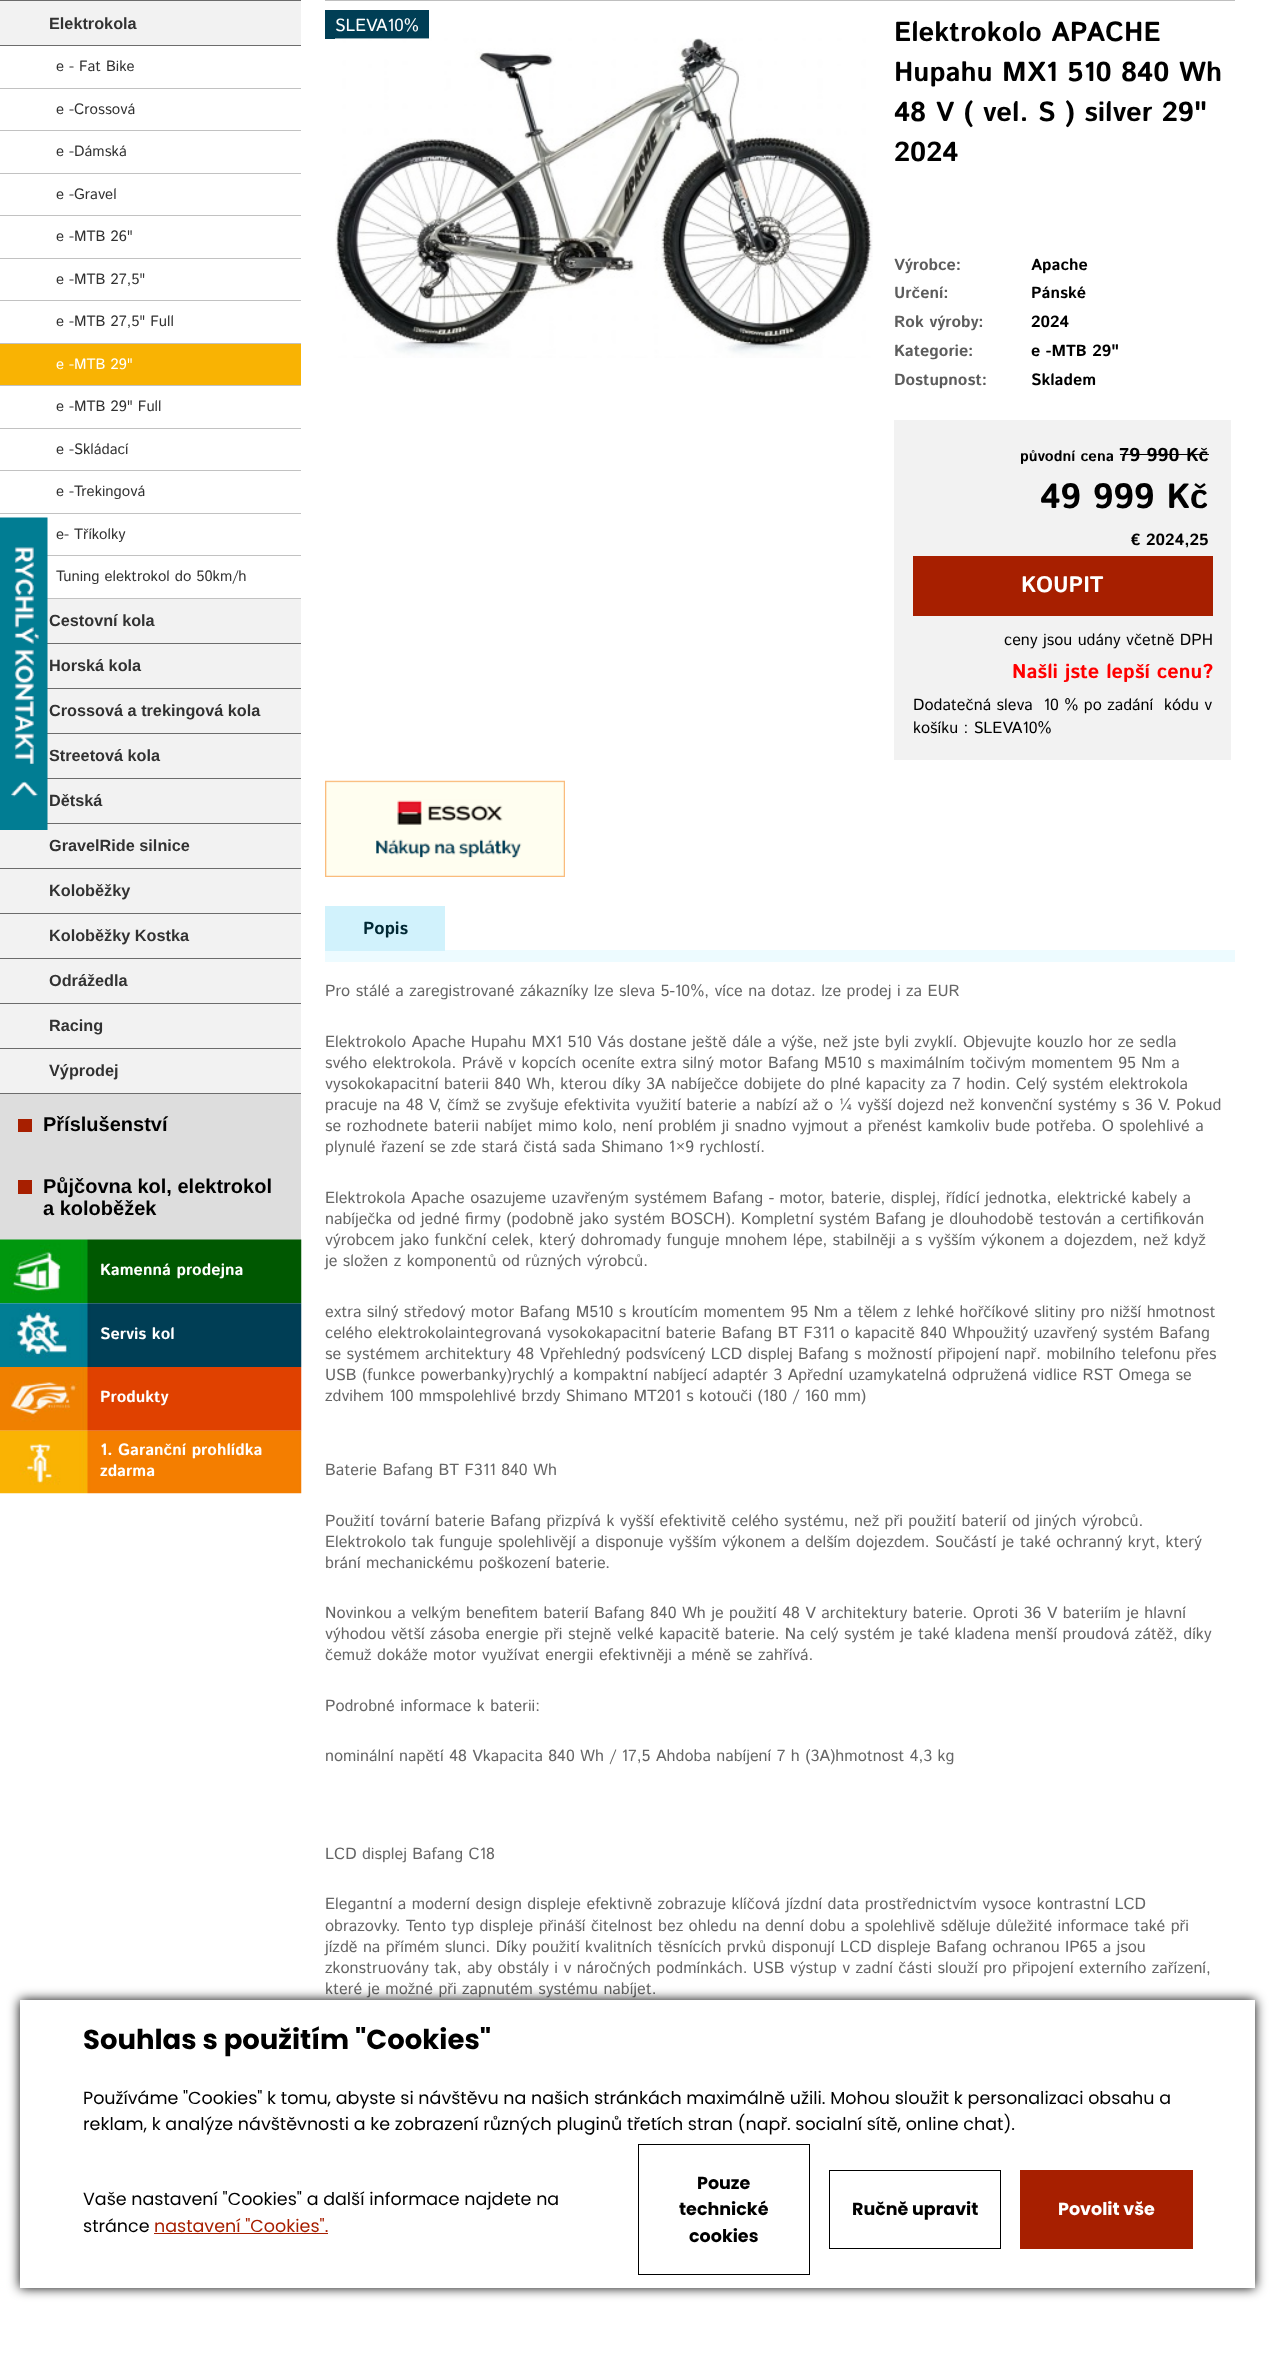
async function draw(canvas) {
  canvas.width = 1275
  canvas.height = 2358
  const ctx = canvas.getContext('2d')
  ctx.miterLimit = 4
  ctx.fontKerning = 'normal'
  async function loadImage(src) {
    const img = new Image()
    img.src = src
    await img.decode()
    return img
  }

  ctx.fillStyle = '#fff'
  ctx.fillRect(0, 0, 1275, 2358)
  ctx.fillStyle = '#f2f2f2'
  ctx.fillRect(0, 1, 301, 1092)
  ctx.fillStyle = '#fff'
  ctx.fillRect(0, 46, 301, 552)
  ctx.fillStyle = '#c2c2c2'
  ctx.fillRect(47, 555, 254, 1)
  ctx.fillRect(47, 598, 254, 1)
  ctx.fillStyle = '#6c6c6c'
  ctx.fillRect(47, 643, 254, 1)
  ctx.fillRect(47, 688, 254, 1)
  ctx.fillRect(47, 733, 254, 1)
  ctx.fillRect(47, 778, 254, 1)
  ctx.fillRect(47, 823, 254, 1)
  ctx.drawImage(await loadImage('image0.png'), 0, 517, 48, 313)
  ctx.fillStyle = '#ddd'
  ctx.fillRect(0, 1094, 301, 146)
  ctx.fillStyle = '#6c6c6c'
  ctx.fillRect(0, 0, 301, 1)
  ctx.fillRect(0, 45, 301, 1)
  ctx.font = 'bold 16.25px Liberation Sans'
  ctx.fillStyle = '#323232'
  ctx.fillText('Elektrokola', 49, 29)
  ctx.fillStyle = '#c2c2c2'
  ctx.fillRect(0, 88, 301, 1)
  ctx.font = '15px Istok Web'
  ctx.fillStyle = '#323232'
  ctx.fillText('e - Fat Bike', 56, 71)
  ctx.fillStyle = '#c2c2c2'
  ctx.fillRect(0, 130, 301, 1)
  ctx.fillStyle = '#323232'
  ctx.fillText('e -Crossová', 56, 114)
  ctx.fillStyle = '#c2c2c2'
  ctx.fillRect(0, 173, 301, 1)
  ctx.fillStyle = '#323232'
  ctx.fillText('e -Dámská', 56, 156)
  ctx.fillStyle = '#c2c2c2'
  ctx.fillRect(0, 215, 301, 1)
  ctx.fillStyle = '#323232'
  ctx.fillText('e -Gravel', 56, 199)
  ctx.fillStyle = '#c2c2c2'
  ctx.fillRect(0, 258, 301, 1)
  ctx.fillStyle = '#323232'
  ctx.fillText('e -MTB 26"', 56, 241)
  ctx.fillStyle = '#c2c2c2'
  ctx.fillRect(0, 300, 301, 1)
  ctx.fillStyle = '#323232'
  ctx.fillText('e -MTB 27,5"', 56, 284)
  ctx.fillStyle = '#c2c2c2'
  ctx.fillRect(0, 343, 301, 1)
  ctx.fillStyle = '#323232'
  ctx.fillText('e -MTB 27,5" Full', 56, 326)
  ctx.fillStyle = '#f9b303'
  ctx.fillRect(0, 344, 301, 41)
  ctx.fillStyle = '#c2c2c2'
  ctx.fillRect(0, 385, 301, 1)
  ctx.fillStyle = '#fff'
  ctx.fillText('e -MTB 29"', 56, 369)
  ctx.fillStyle = '#c2c2c2'
  ctx.fillRect(0, 428, 301, 1)
  ctx.fillStyle = '#323232'
  ctx.fillText('e -MTB 29" Full', 56, 411)
  ctx.fillStyle = '#c2c2c2'
  ctx.fillRect(0, 470, 301, 1)
  ctx.fillStyle = '#323232'
  ctx.fillText('e -Skládací', 56, 454)
  ctx.fillStyle = '#c2c2c2'
  ctx.fillRect(0, 513, 301, 1)
  ctx.fillStyle = '#323232'
  ctx.fillText('e -Trekingová', 56, 496)
  ctx.fillText('e- Tříkolky', 56, 539)
  ctx.fillText('Tuning elektrokol do 50km/h', 56, 581)
  ctx.font = 'bold 16.25px Liberation Sans'
  ctx.fillText('Cestovní kola', 49, 626)
  ctx.fillText('Horská kola', 49, 671)
  ctx.fillText('Crossová a trekingová kola', 49, 716)
  ctx.fillText('Streetová kola', 49, 761)
  ctx.fillText('Dětská', 49, 806)
  ctx.fillStyle = '#6c6c6c'
  ctx.fillRect(0, 868, 301, 1)
  ctx.fillStyle = '#323232'
  ctx.fillText('GravelRide silnice', 49, 851)
  ctx.fillStyle = '#6c6c6c'
  ctx.fillRect(0, 913, 301, 1)
  ctx.fillStyle = '#323232'
  ctx.fillText('Koloběžky', 49, 896)
  ctx.fillStyle = '#6c6c6c'
  ctx.fillRect(0, 958, 301, 1)
  ctx.fillStyle = '#323232'
  ctx.fillText('Koloběžky Kostka', 49, 941)
  ctx.fillStyle = '#6c6c6c'
  ctx.fillRect(0, 1003, 301, 1)
  ctx.fillStyle = '#323232'
  ctx.fillText('Odrážedla', 49, 986)
  ctx.fillStyle = '#6c6c6c'
  ctx.fillRect(0, 1048, 301, 1)
  ctx.fillStyle = '#323232'
  ctx.fillText('Racing', 49, 1031)
  ctx.fillStyle = '#6c6c6c'
  ctx.fillRect(0, 1093, 301, 1)
  ctx.fillStyle = '#323232'
  ctx.fillText('Výprodej', 49, 1076)
  ctx.fillStyle = '#a71f00'
  ctx.fillRect(18, 1119, 14, 13)
  ctx.font = 'bold 20px Liberation Sans'
  ctx.fillStyle = '#000'
  ctx.fillText('Příslušenství', 43, 1131)
  ctx.fillStyle = '#a71f00'
  ctx.fillRect(18, 1180, 14, 14)
  ctx.fillStyle = '#000'
  ctx.fillText('Půjčovna kol, elektrokol', 43, 1193)
  ctx.fillText('a koloběžek', 43, 1215)
  ctx.drawImage(await loadImage('image1.png'), 0, 1239, 302, 65)
  ctx.font = 'bold 16.25px Istok Web'
  ctx.fillStyle = '#fff'
  ctx.fillText('Kamenná prodejna', 100, 1275)
  ctx.drawImage(await loadImage('image2.png'), 0, 1303, 302, 64)
  ctx.fillText('Servis kol', 100, 1339)
  ctx.drawImage(await loadImage('image3.png'), 0, 1367, 302, 64)
  ctx.fillText('Produkty', 100, 1402)
  ctx.drawImage(await loadImage('image4.png'), 0, 1430, 302, 64)
  ctx.fillText('1. Garanční prohlídka', 100, 1455)
  ctx.fillText('zdarma', 100, 1476)
  ctx.fillStyle = '#bfbfbf'
  ctx.fillRect(325, 0, 910, 1)
  ctx.fillStyle = '#003e55'
  ctx.fillRect(325, 10, 104, 29)
  ctx.font = '17.5px Istok Web'
  ctx.fillStyle = '#fff'
  ctx.fillText('SLEVA10%', 335, 31)
  ctx.drawImage(await loadImage('image5.png'), 335, 38, 538, 320)
  ctx.font = 'bold 27.5px Istok Web'
  ctx.fillStyle = '#000'
  ctx.fillText('Elektrokolo APACHE', 894, 41)
  ctx.fillText('Hupahu MX1 510 840 Wh', 894, 81)
  ctx.fillText('48 V ( vel. S ) silver 29"', 894, 121)
  ctx.fillText('2024', 894, 161)
  ctx.font = 'bold 16.25px Istok Web'
  ctx.fillStyle = '#5d5d5d'
  ctx.fillText('Výrobce:', 894, 270)
  ctx.fillStyle = '#000'
  ctx.fillText('Apache', 1031, 270)
  ctx.fillStyle = '#5d5d5d'
  ctx.fillText('Určení:', 894, 298)
  ctx.fillStyle = '#000'
  ctx.fillText('Pánské', 1031, 298)
  ctx.fillStyle = '#5d5d5d'
  ctx.fillText('Rok výroby:', 894, 327)
  ctx.fillStyle = '#000'
  ctx.fillText('2024', 1031, 327)
  ctx.fillStyle = '#5d5d5d'
  ctx.fillText('Kategorie:', 894, 356)
  ctx.fillStyle = '#000'
  ctx.fillText('e -MTB 29"', 1031, 356)
  ctx.fillStyle = '#5d5d5d'
  ctx.fillText('Dostupnost:', 894, 385)
  ctx.fillStyle = '#000'
  ctx.fillText('Skladem', 1031, 385)
  ctx.fillStyle = '#f2f2f2'
  ctx.fillRect(894, 420, 337, 340)
  ctx.font = 'bold 15px Istok Web'
  ctx.fillStyle = '#000'
  ctx.fillText('původní cena', 1020, 461)
  ctx.font = 'bold 18.75px Istok Web'
  ctx.fillText('79 990 Kč', 1119, 461)
  ctx.fillRect(1120, 454, 89, 1)
  ctx.font = 'bold 35px Istok Web'
  ctx.fillText('49 999 Kč', 1040, 508)
  ctx.font = 'bold 16.25px Istok Web'
  ctx.fillText('€ 2024,25', 1131, 545)
  ctx.fillStyle = '#a71f00'
  ctx.fillRect(913, 556, 300, 60)
  ctx.font = 'bold 22.5px Istok Web'
  ctx.fillStyle = '#fff'
  ctx.fillText('KOUPIT', 1021, 592)
  ctx.font = '16.25px Istok Web'
  ctx.fillStyle = '#000'
  ctx.fillText('ceny jsou udány včetně DPH', 1004, 645)
  ctx.font = 'bold 20px Istok Web'
  ctx.fillStyle = '#f00'
  ctx.fillText('Našli jste lepší cenu?', 1012, 678)
  ctx.font = '16.25px Istok Web'
  ctx.fillStyle = '#000'
  ctx.fillText('Dodatečná sleva  10 % po zadání  kódu v', 913, 710)
  ctx.fillText('košíku : SLEVA10%', 913, 733)
  ctx.drawImage(await loadImage('image6.png'), 325, 780, 240, 97)
  ctx.fillStyle = '#edfbff'
  ctx.fillRect(325, 950, 910, 12)
  ctx.fillStyle = '#d1f2fc'
  ctx.fillRect(325, 906, 120, 45)
  ctx.font = 'bold 17.5px Istok Web'
  ctx.fillStyle = '#002834'
  ctx.fillText('Popis', 363, 934)
  ctx.font = '16.25px Istok Web'
  ctx.fillStyle = '#666'
  ctx.fillText('Pro stálé a zaregistrované zákazníky lze sleva 5-10%, více na dotaz. lze prodej i za EUR', 325, 996)
  ctx.fillText('Elektrokolo Apache Hupahu MX1 510 Vás dostane ještě dále a výše, než jste byli zvyklí. Objevujte kouzlo hor ze sedla', 325, 1047)
  ctx.fillText('svého elektrokola. Právě v kopcích oceníte extra silný motor Bafang M510 s maximálním točivým momentem 95 Nm a', 325, 1068)
  ctx.fillText('vysokokapacitní baterii 840 Wh, kterou díky 3A nabíječce dobijete do plné kapacity za 7 hodin. Celý systém elektrokola', 325, 1089)
  ctx.fillText('pracuje na 48 V, čímž se zvyšuje efektivita využití baterie a nabízí až o ¼ vyšší dojezd než konvenční systémy s 36 V. Pokud', 325, 1110)
  ctx.fillText('se rozhodnete baterii nabíjet mimo kolo, není problém ji snadno vyjmout a přenést kamkoliv bude potřeba. O spolehlivé a', 325, 1131)
  ctx.fillText('plynulé řazení se zde stará čistá sada Shimano 1×9 rychlostí.', 325, 1152)
  ctx.fillText('Elektrokola Apache osazujeme uzavřeným systémem Bafang - motor, baterie, displej, řídící jednotka, elektrické kabely a', 325, 1203)
  ctx.fillText('nabíječka od jedné firmy (podobně jako systém BOSCH). Kompletní systém Bafang je dlouhodobě testován a certifikován', 325, 1224)
  ctx.fillText('výrobcem jako funkční celek, který dohromady funguje mnohem lépe, stabilněji a s vyšším výkonem a dojezdem, než když', 325, 1245)
  ctx.fillText('je složen z komponentů od různých výrobců.', 325, 1266)
  ctx.fillText('extra silný středový motor Bafang M510 s kroutícím momentem 95 Nm a tělem z lehké hořčíkové slitiny pro nižší hmotnost', 325, 1317)
  ctx.fillText('celého elektrokolaintegrovaná vysokokapacitní baterie Bafang BT F311 o kapacitě 840 Whpoužitý uzavřený systém Bafang', 325, 1338)
  ctx.fillText('se systémem architektury 48 Vpřehledný podsvícený LCD displej Bafang s možností připojení např. mobilního telefonu přes', 325, 1359)
  ctx.fillText('USB (funkce powerbanky)rychlý a kompaktní nabíjecí adaptér 3 Apřední uzamykatelná odpružená vidlice RST Omega se', 325, 1380)
  ctx.fillText('zdvihem 100 mmspolehlivé brzdy Shimano MT201 s kotouči (180 / 160 mm)', 325, 1401)
  ctx.fillText('Baterie Bafang BT F311 840 Wh', 325, 1475)
  ctx.fillText('Použití tovární baterie Bafang přizpívá k vyšší efektivitě celého systému, než při použití baterií od jiných výrobců.', 325, 1526)
  ctx.fillText('Elektrokolo tak funguje spolehlivějí a disponuje vyšším výkonem a delším dojezdem. Součástí je také ochranný kryt, který', 325, 1547)
  ctx.fillText('brání mechanickému poškození baterie.', 325, 1568)
  ctx.fillText('Novinkou a velkým benefitem baterií Bafang 840 Wh je použití 48 V architektury baterie. Oproti 36 V bateriím je hlavní', 325, 1618)
  ctx.fillText('výhodou větší zásoba energie při stejně velké kapacitě baterie. Na celý systém je také kladena menší proudová zátěž, díky', 325, 1639)
  ctx.fillText('čemuž dokáže motor využívat energii efektivněji a méně se zahřívá.', 325, 1660)
  ctx.fillText('Podrobné informace k baterii:', 325, 1711)
  ctx.fillText('nominální napětí 48 Vkapacita 840 Wh / 17,5 Ahdoba nabíjení 7 h (3A)hmotnost 4,3 kg', 325, 1761)
  ctx.fillText('LCD displej Bafang C18', 325, 1859)
  ctx.fillText('Elegantní a moderní design displeje efektivně zobrazuje klíčová jízdní data prostřednictvím vysoce kontrastní LCD', 325, 1909)
  ctx.fillText('obrazovky. Tento typ displeje přináší čitelnost bez ohledu na denní dobu a spolehlivě sděluje důležité informace také při', 325, 1931)
  ctx.fillText('jízdě na přímém slunci. Díky použití kvalitních těsnících prvků disponují LCD displeje Bafang ochranou IP65 a jsou', 325, 1952)
  ctx.fillText('zkonstruovány tak, aby obstály i v náročných podmínkách. USB výstup v zadní části slouží pro připojení externího zařízení,', 325, 1973)
  ctx.fillText('které je možné při zapnutém systému nabíjet.', 325, 1994)
  ctx.fillStyle = '#000'
  ctx.filter = 'blur(6px)'
  ctx.beginPath()
  ctx.rect(20, 2000, 1235, 288)
  ctx.fill()
  ctx.filter = 'none'
  ctx.fillStyle = '#fff'
  ctx.fillRect(20, 2000, 1235, 288)
  ctx.font = 'bold 27.5px Poppins'
  ctx.fillStyle = '#000'
  ctx.fillText('Souhlas s použitím "Cookies"', 83, 2049)
  ctx.font = '17.5px Poppins'
  ctx.fillText('Používáme "Cookies" k tomu, abyste si návštěvu na našich stránkách maximálně užili. Mohou sloužit k personalizaci obsahu a', 83, 2104)
  ctx.fillText('reklam, k analýze návštěvnosti a ke zobrazení různých pluginů třetích stran (např. socialní sítě, online chat).', 83, 2130)
  ctx.fillText('Vaše nastavení "Cookies" a další informace najdete na', 83, 2205)
  ctx.fillText('stránce', 83, 2232)
  ctx.fillStyle = '#a71f00'
  ctx.fillText('nastavení "Cookies".', 154, 2232)
  ctx.fillRect(154, 2233, 174, 1)
  ctx.strokeStyle = '#000'
  ctx.strokeRect(638.5, 2144.5, 171, 130)
  ctx.font = 'bold 17.5px Poppins'
  ctx.fillStyle = '#000'
  ctx.fillText('Pouze', 697, 2189)
  ctx.fillText('technické', 679, 2215)
  ctx.fillText('cookies', 689, 2242)
  ctx.strokeRect(829.5, 2170.5, 171, 78)
  ctx.fillText('Ručně upravit', 852, 2215)
  ctx.fillStyle = '#a71f00'
  ctx.fillRect(1020, 2170, 173, 79)
  ctx.fillStyle = '#fff'
  ctx.fillText('Povolit vše', 1058, 2215)
}

draw(document.querySelector('canvas'))
